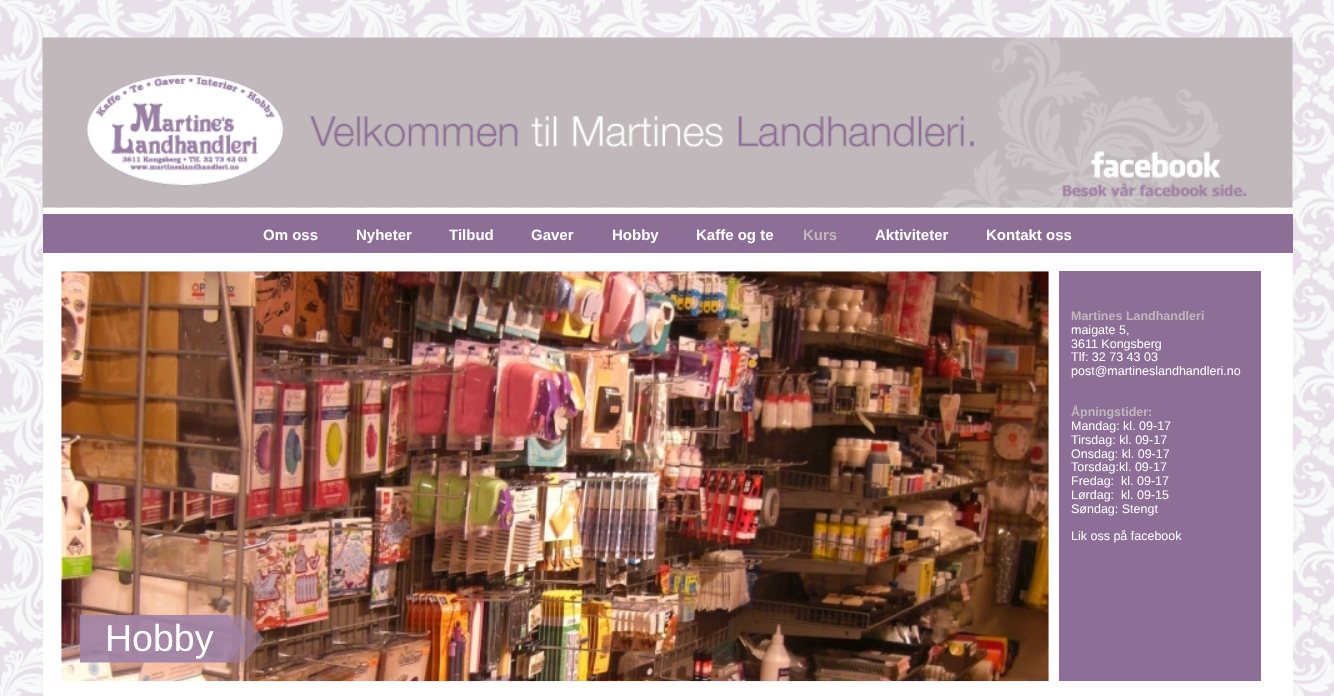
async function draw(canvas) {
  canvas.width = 1334
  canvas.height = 696
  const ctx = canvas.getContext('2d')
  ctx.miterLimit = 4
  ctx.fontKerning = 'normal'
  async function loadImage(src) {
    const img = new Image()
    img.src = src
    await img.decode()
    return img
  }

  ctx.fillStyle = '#fff'
  ctx.fillRect(0, 0, 1334, 696)
  ctx.drawImage(await loadImage('image0.png'), 0, 0, 1334, 696)
  ctx.drawImage(await loadImage('image1.png'), 42, 37, 1251, 171)
  ctx.drawImage(await loadImage('image2.png'), 1062, 151, 185, 47)
  ctx.fillRect(43, 208, 1250, 6)
  ctx.fillStyle = '#8d6e97'
  ctx.fillRect(43, 214, 1250, 39)
  ctx.font = 'bold 15px Liberation Sans'
  ctx.fillStyle = '#fff'
  ctx.fillText('Om oss', 263, 240)
  ctx.fillText('Nyheter', 356, 240)
  ctx.fillText('Tilbud', 449, 240)
  ctx.fillText('Gaver', 531, 240)
  ctx.fillText('Hobby', 612, 240)
  ctx.fillText('Kaffe og te', 696, 240)
  ctx.fillStyle = '#c0b8ba'
  ctx.fillText('Kurs', 803, 240)
  ctx.fillStyle = '#fff'
  ctx.fillText('Aktiviteter', 875, 240)
  ctx.fillText('Kontakt oss', 986, 240)
  ctx.fillRect(43, 253, 1250, 443)
  ctx.fillStyle = '#8d6e97'
  ctx.fillRect(1059, 271, 202, 410)
  ctx.font = 'bold 12.5px Liberation Sans'
  ctx.fillStyle = '#c0b8ba'
  ctx.fillText('Martines Landhandleri', 1071, 320)
  ctx.font = '12.5px Liberation Sans'
  ctx.fillStyle = '#fff'
  ctx.fillText('maigate 5,', 1071, 334)
  ctx.fillText('3611 Kongsberg', 1071, 348)
  ctx.fillText('Tlf: 32 73 43 03', 1071, 361)
  ctx.fillText('post@martineslandhandleri.no', 1071, 375)
  ctx.font = 'bold 12.5px Liberation Sans'
  ctx.fillStyle = '#c0b8ba'
  ctx.fillText('Åpningstider:', 1071, 416)
  ctx.font = '12.5px Liberation Sans'
  ctx.fillStyle = '#fff'
  ctx.fillText('Mandag: kl. 09-17', 1071, 430)
  ctx.fillText('Tirsdag: kl. 09-17', 1071, 444)
  ctx.fillText('Onsdag: kl. 09-17', 1071, 458)
  ctx.fillText('Torsdag:kl. 09-17', 1071, 471)
  ctx.fillText('Fredag:  kl. 09-17', 1071, 485)
  ctx.fillText('Lørdag:  kl. 09-15', 1071, 499)
  ctx.fillText('Søndag: Stengt', 1071, 513)
  ctx.fillText('Lik oss på facebook', 1071, 540)
  ctx.drawImage(await loadImage('image3.png'), 61, 271, 988, 411)
  ctx.drawImage(await loadImage('image4.png'), 80, 615, 184, 48)
  ctx.font = '37.5px Liberation Sans'
  ctx.fillText('Hobby', 105, 651)
}

draw(document.querySelector('canvas'))
